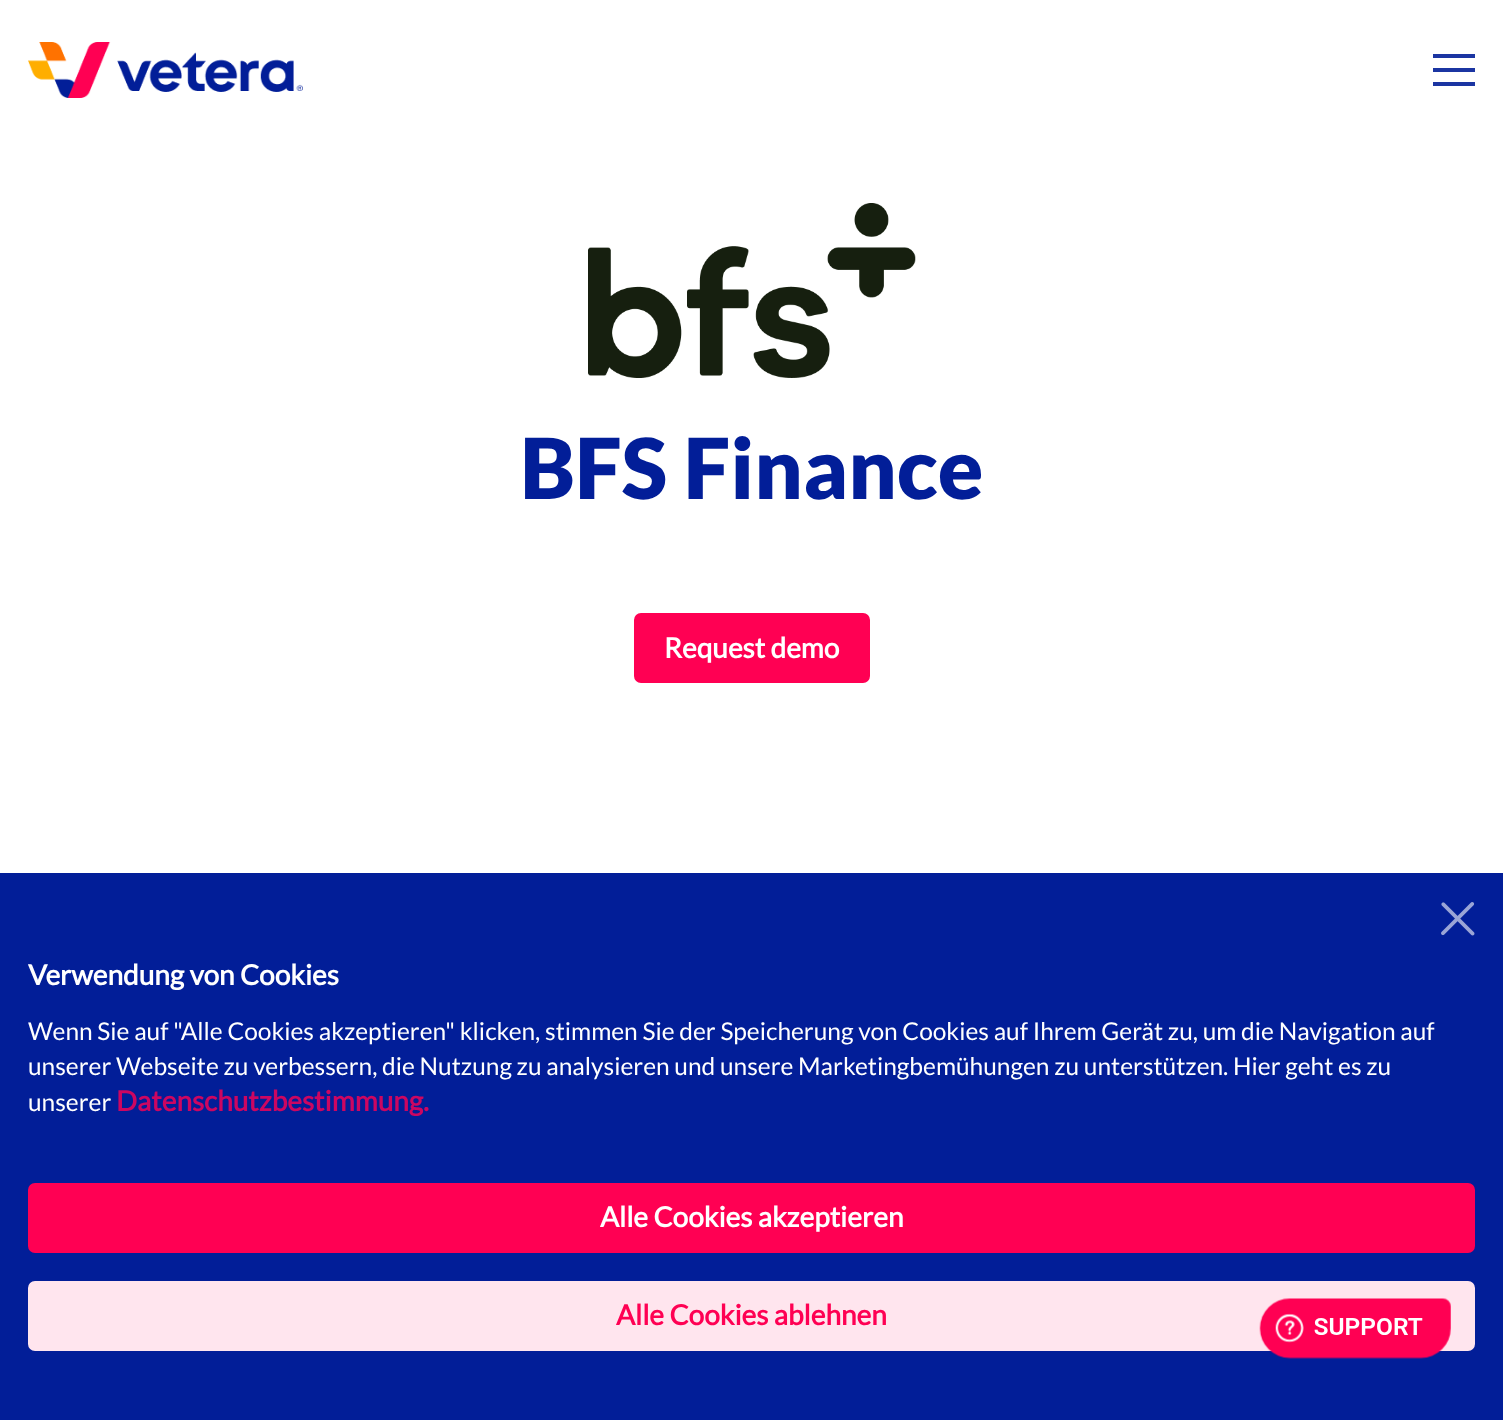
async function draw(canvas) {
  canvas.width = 1503
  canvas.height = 1420
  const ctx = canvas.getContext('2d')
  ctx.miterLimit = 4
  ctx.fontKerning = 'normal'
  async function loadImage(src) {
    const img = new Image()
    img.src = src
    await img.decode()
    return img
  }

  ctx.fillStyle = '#fff'
  ctx.fillRect(0, 0, 1503, 1420)
  ctx.drawImage(await loadImage('image0.png'), 28, 42, 275, 56)
  ctx.fillStyle = '#1b35a2'
  ctx.fillRect(1433, 54, 42, 4)
  ctx.fillRect(1433, 68, 42, 4)
  ctx.fillRect(1433, 82, 42, 4)
  ctx.drawImage(await loadImage('image1.png'), 588, 203, 328, 175)
  ctx.font = '900 84px Lato'
  ctx.fillStyle = '#021e98'
  ctx.fillText('BFS Finance', 520, 499)
  ctx.fillStyle = '#ff0053'
  ctx.beginPath()
  ctx.roundRect(635, 614, 234, 68, 6)
  ctx.fill()
  ctx.strokeStyle = '#ff0053'
  ctx.lineWidth = 2
  ctx.stroke()
  ctx.font = 'bold 28px Lato'
  ctx.fillStyle = '#fff'
  ctx.fillText('Request demo', 664, 658)
  ctx.fillStyle = '#021e98'
  ctx.fillRect(0, 873, 1503, 547)
  ctx.drawImage(await loadImage('image2.png'), 1441, 902, 34, 34)
  ctx.fillStyle = '#fff'
  ctx.fillText('Verwendung von Cookies', 28, 985)
  ctx.font = '24.5px Lato'
  ctx.fillText('Wenn Sie auf "Alle Cookies akzeptieren" klicken, stimmen Sie der Speicherung von Cookies auf Ihrem Gerät zu, um die Navigation auf', 28, 1040)
  ctx.fillText('unserer Webseite zu verbessern, die Nutzung zu analysieren und unsere Marketingbemühungen zu unterstützen. Hier geht es zu', 28, 1075)
  ctx.fillText('unserer', 28, 1111)
  ctx.font = 'bold 28px Lato'
  ctx.fillStyle = '#cc0661'
  ctx.fillText('Datenschutzbestimmung.', 116, 1111)
  ctx.fillStyle = '#ff0053'
  ctx.beginPath()
  ctx.roundRect(29, 1184, 1445, 68, 6)
  ctx.fill()
  ctx.stroke()
  ctx.fillStyle = '#fff'
  ctx.fillText('Alle Cookies akzeptieren', 600, 1227)
  ctx.fillStyle = '#ffe5ee'
  ctx.beginPath()
  ctx.roundRect(29, 1282, 1445, 68, 6)
  ctx.fill()
  ctx.strokeStyle = '#ffe5ee'
  ctx.stroke()
  ctx.fillStyle = '#ff0053'
  ctx.fillText('Alle Cookies ablehnen', 616, 1325)
  ctx.drawImage(await loadImage('image3.png'), 1259, 1298, 192, 61)
}

draw(document.querySelector('canvas'))
